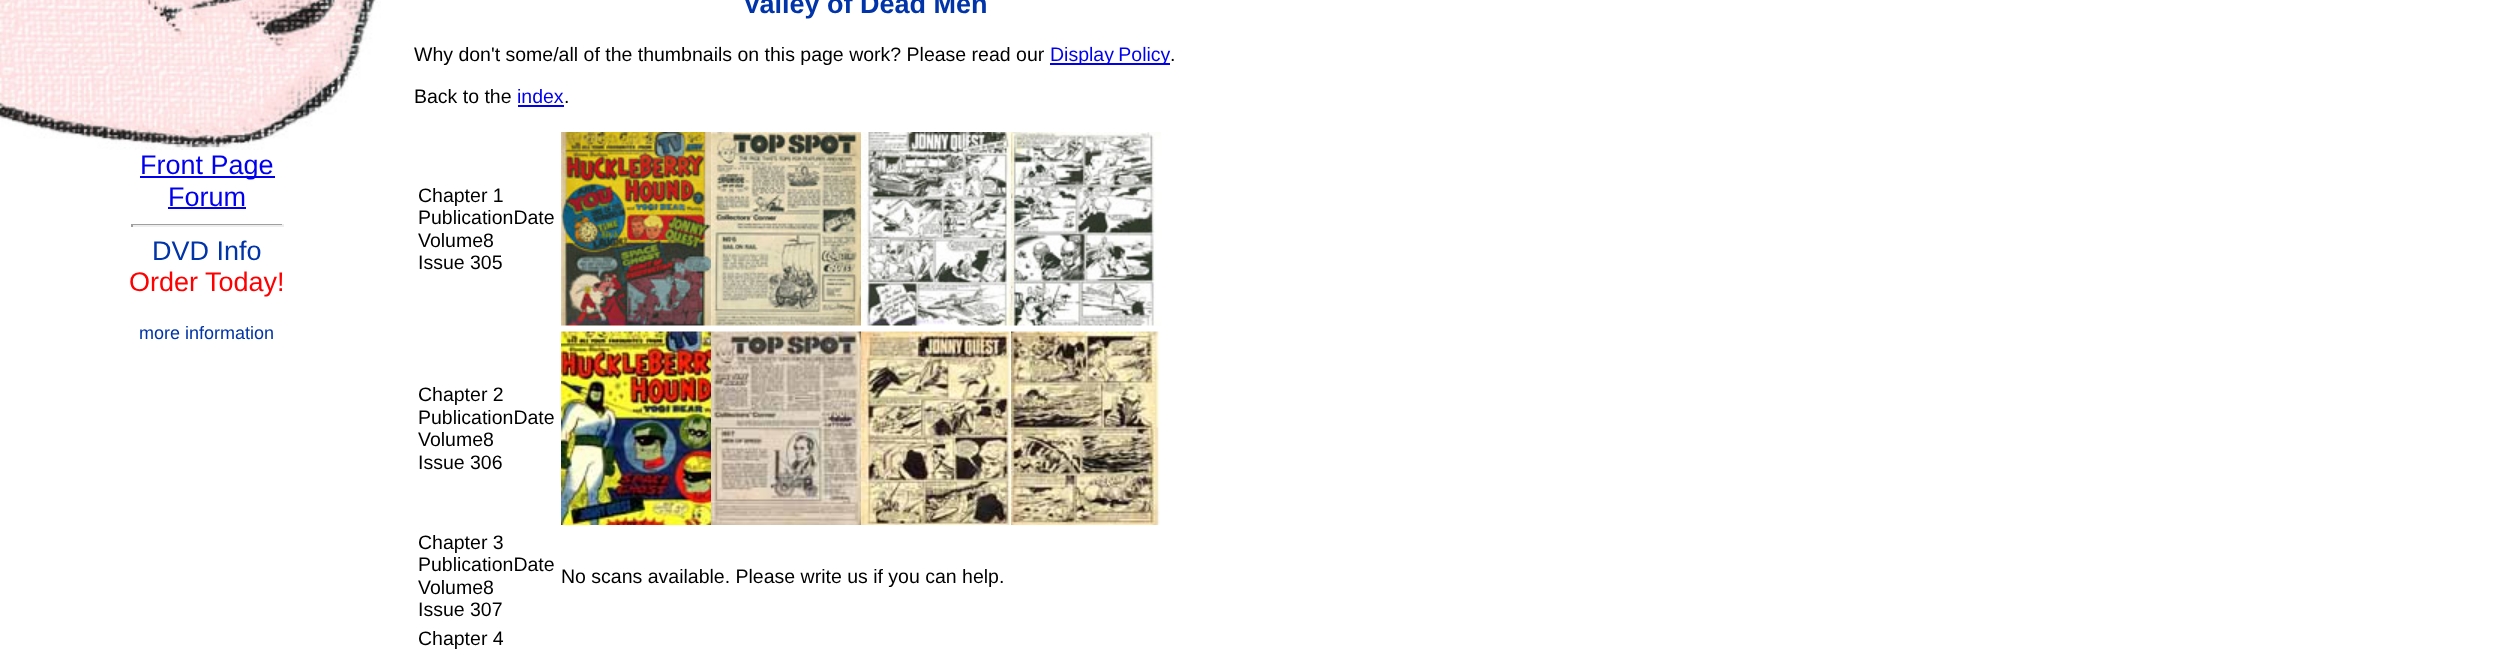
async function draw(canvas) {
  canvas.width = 2503
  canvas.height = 663
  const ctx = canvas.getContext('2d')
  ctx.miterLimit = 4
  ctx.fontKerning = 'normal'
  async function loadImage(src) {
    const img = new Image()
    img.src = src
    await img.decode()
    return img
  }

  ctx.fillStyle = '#fff'
  ctx.fillRect(0, 0, 2503, 663)
  ctx.drawImage(await loadImage('image0.png'), 0, 0, 381, 150)
  ctx.fillStyle = '#00e'
  ctx.fillRect(140, 176, 135, 2)
  ctx.font = '27px Liberation Sans'
  ctx.fillText('Front Page', 140, 174)
  ctx.fillText('Forum', 168, 206)
  ctx.fillRect(168, 207, 78, 2)
  ctx.fillStyle = '#9f9f9f'
  ctx.fillRect(131, 224, 153, 1)
  ctx.fillStyle = '#eee'
  ctx.fillRect(282, 224, 2, 3)
  ctx.fillRect(131, 225, 153, 2)
  ctx.fillStyle = '#9f9f9f'
  ctx.fillRect(131, 224, 2, 3)
  ctx.fillStyle = '#0034a8'
  ctx.fillText('DVD Info', 152, 260)
  ctx.fillStyle = '#f00'
  ctx.fillText('Order Today!', 129, 291)
  ctx.font = '18px Liberation Sans'
  ctx.fillStyle = '#0034a8'
  ctx.fillText('more information', 139, 339)
  ctx.font = 'bold 27px Liberation Sans'
  ctx.fillText('Valley of Dead Men', 743, 13)
  ctx.font = '19.5px Liberation Sans'
  ctx.fillStyle = '#000'
  ctx.fillText('Why don\'t some/all of the thumbnails on this page work? Please read our', 414, 61)
  ctx.fillStyle = '#00e'
  ctx.fillRect(1050, 63, 120, 2)
  ctx.wordSpacing = '-1px'
  ctx.fillText('Display Policy', 1050, 61)
  ctx.wordSpacing = '0px'
  ctx.fillStyle = '#000'
  ctx.fillText('.', 1170, 61)
  ctx.fillText('Back to the', 414, 103)
  ctx.fillStyle = '#00e'
  ctx.fillText('index', 517, 103)
  ctx.fillRect(518, 105, 46, 2)
  ctx.fillStyle = '#000'
  ctx.fillText('.', 564, 103)
  ctx.fillText('Chapter 1', 418, 202)
  ctx.fillText('PublicationDate', 418, 224)
  ctx.fillText('Volume8', 418, 247)
  ctx.fillText('Issue 305', 418, 269)
  ctx.drawImage(await loadImage('image1.png'), 561, 132, 150, 194)
  ctx.drawImage(await loadImage('image2.png'), 711, 132, 150, 194)
  ctx.drawImage(await loadImage('image3.png'), 861, 132, 150, 194)
  ctx.drawImage(await loadImage('image4.png'), 1011, 132, 150, 194)
  ctx.fillText('Chapter 2', 418, 401)
  ctx.fillText('PublicationDate', 418, 424)
  ctx.fillText('Volume8', 418, 446)
  ctx.fillText('Issue 306', 418, 469)
  ctx.drawImage(await loadImage('image5.png'), 561, 331, 150, 194)
  ctx.drawImage(await loadImage('image6.png'), 711, 331, 150, 194)
  ctx.drawImage(await loadImage('image7.png'), 861, 331, 150, 194)
  ctx.drawImage(await loadImage('image8.png'), 1011, 331, 149, 194)
  ctx.fillText('Chapter 3', 418, 549)
  ctx.fillText('PublicationDate', 418, 571)
  ctx.fillText('Volume8', 418, 594)
  ctx.fillText('Issue 307', 418, 616)
  ctx.fillText('No scans available. Please write us if you can help.', 561, 583)
  ctx.fillText('Chapter 4', 418, 645)
}

draw(document.querySelector('canvas'))
